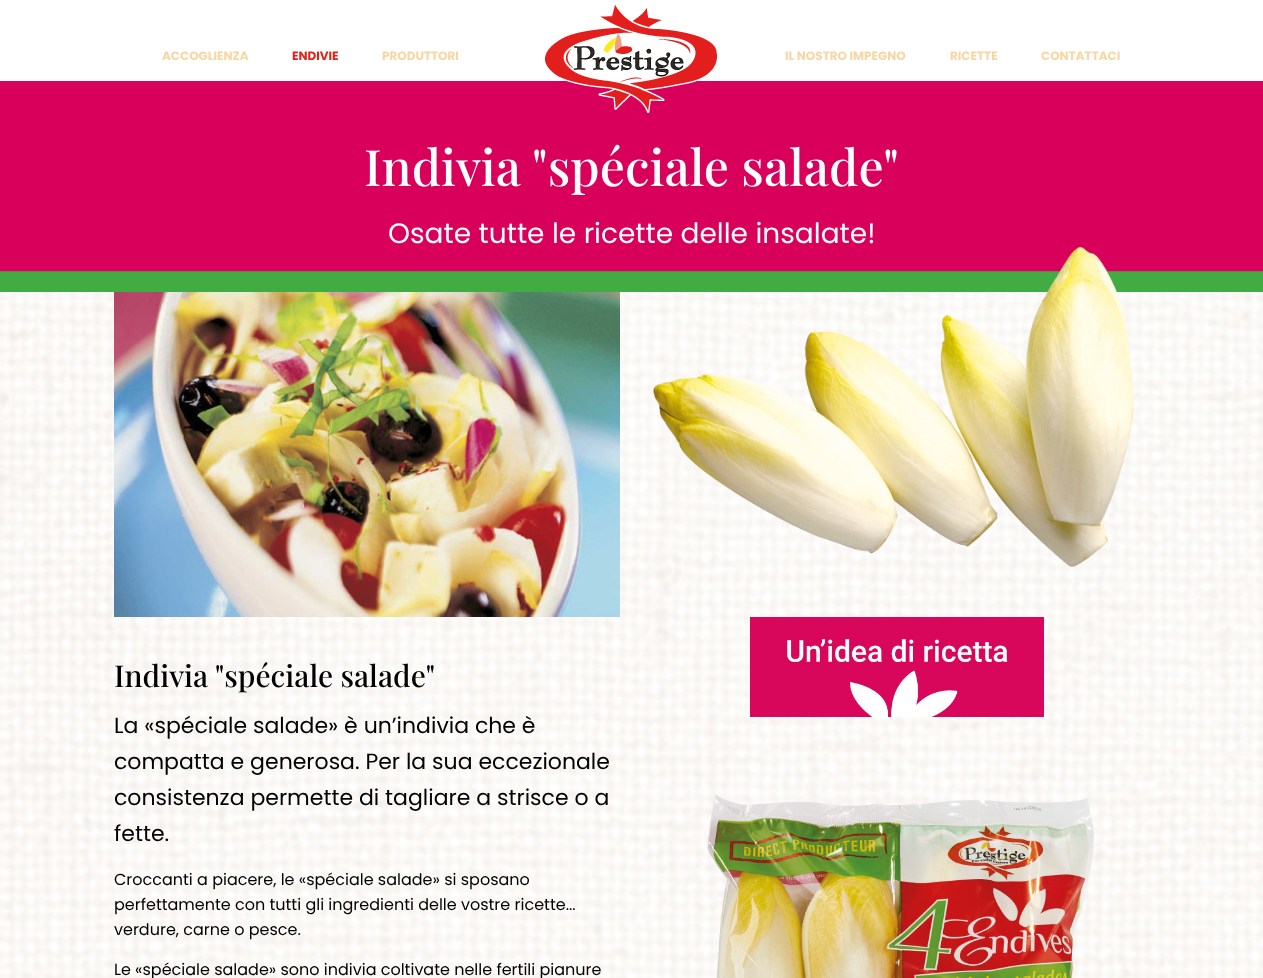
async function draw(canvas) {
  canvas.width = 1263
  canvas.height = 978
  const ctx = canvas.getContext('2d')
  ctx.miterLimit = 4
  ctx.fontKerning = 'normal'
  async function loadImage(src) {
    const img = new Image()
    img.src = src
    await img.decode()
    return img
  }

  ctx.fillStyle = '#fff'
  ctx.fillRect(0, 0, 1263, 978)
  ctx.drawImage(await loadImage('image1.png'), 0, 81, 1263, 211)
  ctx.drawImage(await loadImage('image0.png'), 545, 4, 172, 109)
  ctx.font = 'bold 12px Poppins'
  ctx.fillStyle = '#f8d6a4'
  ctx.fillText('ACCOGLIENZA', 162, 60)
  ctx.fillStyle = '#e2231a'
  ctx.fillText('ENDIVIE', 292, 60)
  ctx.fillStyle = '#f8d6a4'
  ctx.fillText('PRODUTTORI', 382, 60)
  ctx.fillText('IL NOSTRO IMPEGNO', 785, 60)
  ctx.fillText('RICETTE', 950, 60)
  ctx.fillText('CONTATTACI', 1041, 60)
  ctx.font = '500 50px Playfair Display'
  ctx.fillStyle = '#fff'
  ctx.fillText('Indivia "spéciale salade"', 364, 186)
  ctx.font = '28px Poppins'
  ctx.fillText('Osate tutte le ricette delle insalate!', 388, 243)
  ctx.drawImage(await loadImage('image2.png'), 0, 292, 1263, 686)
  ctx.drawImage(await loadImage('image3.png'), 114, 292, 506, 325)
  ctx.font = '500 30px Playfair Display'
  ctx.fillStyle = '#000'
  ctx.fillText('Indivia "spéciale salade"', 114, 687)
  ctx.font = '22px Poppins'
  ctx.fillText('La «spéciale salade» è un’indivia che è', 114, 733)
  ctx.fillText('compatta e generosa. Per la sua eccezionale', 114, 769)
  ctx.fillText('consistenza permette di tagliare a strisce o a', 114, 805)
  ctx.fillText('fette.', 114, 841)
  ctx.font = '16px Poppins'
  ctx.fillText('Croccanti a piacere, le «spéciale salade» si sposano', 114, 885)
  ctx.fillText('perfettamente con tutti gli ingredienti delle vostre ricette...', 114, 910)
  ctx.fillText('verdure, carne o pesce.', 114, 935)
  ctx.fillText('Le «spéciale salade» sono indivia coltivate nelle fertili pianure', 114, 975)
  ctx.drawImage(await loadImage('image4.png'), 653, 246, 481, 322)
  ctx.drawImage(await loadImage('image5.png'), 750, 617, 294, 100)
  ctx.drawImage(await loadImage('image6.png'), 707, 795, 387, 183)
}

draw(document.querySelector('canvas'))
